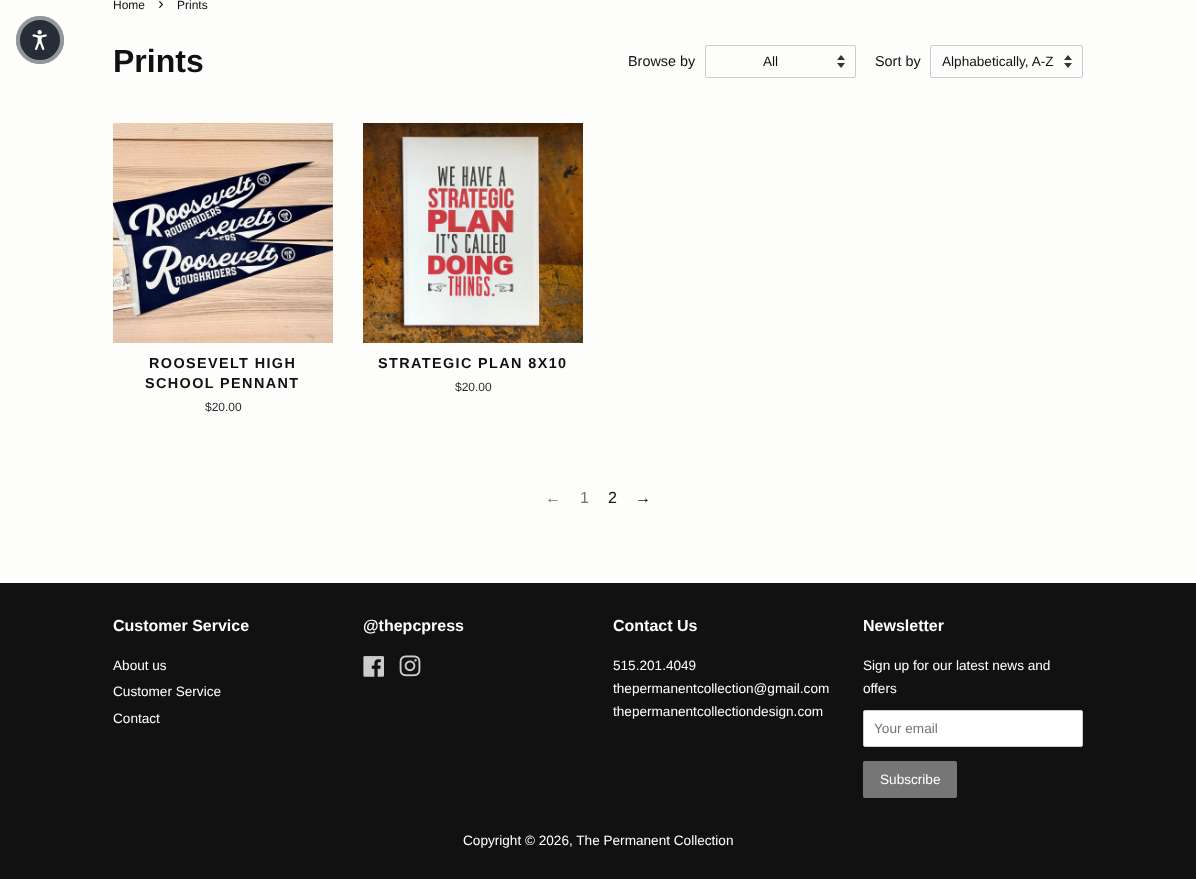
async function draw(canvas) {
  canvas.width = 1196
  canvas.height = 879
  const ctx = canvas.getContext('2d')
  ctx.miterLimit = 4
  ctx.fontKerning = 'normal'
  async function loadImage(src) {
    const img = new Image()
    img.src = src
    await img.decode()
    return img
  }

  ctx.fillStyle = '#fdfdfc'
  ctx.fillRect(0, 0, 1196, 879)
  ctx.fillStyle = '#272d36'
  ctx.beginPath()
  ctx.arc(40, 40, 24, 0, 2 * Math.PI)
  ctx.fill()
  ctx.beginPath()
  ctx.arc(40, 40, 22, 0, 2 * Math.PI)
  ctx.strokeStyle = '#ffffff80'
  ctx.lineWidth = 4
  ctx.stroke()
  ctx.drawImage(await loadImage('image0.png'), 32, 30, 15, 20)
  ctx.font = '12px Liberation Sans'
  ctx.fillStyle = '#111'
  ctx.fillText('Home', 113, 9)
  ctx.font = '17px Liberation Sans'
  ctx.fillText('›', 158, 9)
  ctx.font = '12px Liberation Sans'
  ctx.fillText('Prints', 177, 9)
  ctx.font = 'bold 32px Liberation Sans'
  ctx.fillText('Prints', 113, 72)
  ctx.font = '14.4px Liberation Sans'
  ctx.fillText('Browse by', 628, 66)
  ctx.drawImage(await loadImage('image1.png'), 837, 55, 8, 13)
  ctx.beginPath()
  ctx.roundRect(705.5, 45.5, 150, 32, 1.5)
  ctx.strokeStyle = '#ccc'
  ctx.lineWidth = 1
  ctx.stroke()
  ctx.font = '13.6px Liberation Sans'
  ctx.fillText('All', 763, 66)
  ctx.font = '14.4px Liberation Sans'
  ctx.fillText('Sort by', 875, 66)
  ctx.drawImage(await loadImage('image1.png'), 1064, 55, 8, 13)
  ctx.beginPath()
  ctx.roundRect(930.5, 45.5, 152, 32, 1.5)
  ctx.stroke()
  ctx.font = '13.6px Liberation Sans'
  ctx.fillText('Alphabetically, A-Z', 942, 66)
  ctx.drawImage(await loadImage('image2.png'), 113, 123, 220, 220)
  ctx.letterSpacing = '1.4px'
  ctx.font = 'bold 14.4px Liberation Sans'
  ctx.fillText('ROOSEVELT HIGH', 149, 368)
  ctx.fillText('SCHOOL PENNANT', 145, 388)
  ctx.letterSpacing = '0px'
  ctx.font = '12px Liberation Sans'
  ctx.fillStyle = '#2b2b2b'
  ctx.fillText('$20.00', 205, 411)
  ctx.drawImage(await loadImage('image3.png'), 363, 123, 220, 220)
  ctx.letterSpacing = '1.4px'
  ctx.font = 'bold 14.4px Liberation Sans'
  ctx.fillStyle = '#111'
  ctx.fillText('STRATEGIC PLAN 8X10', 378, 368)
  ctx.letterSpacing = '0px'
  ctx.font = '12px Liberation Sans'
  ctx.fillStyle = '#2b2b2b'
  ctx.fillText('$20.00', 455, 391)
  ctx.font = '16px Liberation Sans'
  ctx.fillStyle = '#757575'
  ctx.fillText('←', 545, 503)
  ctx.fillText('1', 580, 503)
  ctx.fillStyle = '#111'
  ctx.fillText('2', 608, 503)
  ctx.fillText('→', 635, 503)
  ctx.fillRect(0, 583, 1196, 296)
  ctx.font = 'bold 16px Liberation Sans'
  ctx.fillStyle = '#fff'
  ctx.fillText('Customer Service', 113, 631)
  ctx.font = '13.6px Liberation Sans'
  ctx.fillText('About us', 113, 670)
  ctx.fillText('Customer Service', 113, 696)
  ctx.fillText('Contact', 113, 723)
  ctx.font = 'bold 16px Liberation Sans'
  ctx.fillText('@thepcpress', 363, 631)
  ctx.drawImage(await loadImage('image4.png'), 363, 656, 21, 21)
  ctx.drawImage(await loadImage('image5.png'), 399, 655, 22, 22)
  ctx.fillText('Contact Us', 613, 631)
  ctx.font = '13.6px Liberation Sans'
  ctx.fillText('515.201.4049', 613, 670)
  ctx.fillText('thepermanentcollection@gmail.com', 613, 693)
  ctx.fillText('thepermanentcollectiondesign.com', 613, 716)
  ctx.font = 'bold 16px Liberation Sans'
  ctx.fillText('Newsletter', 863, 631)
  ctx.font = '13.6px Liberation Sans'
  ctx.fillText('Sign up for our latest news and', 863, 670)
  ctx.fillText('offers', 863, 693)
  ctx.beginPath()
  ctx.roundRect(863.5, 710.5, 219, 36, 1.5)
  ctx.fill()
  ctx.stroke()
  ctx.fillStyle = '#757575'
  ctx.fillText('Your email', 874, 733)
  ctx.fillStyle = '#767676'
  ctx.beginPath()
  ctx.roundRect(863, 761, 94, 37, 2)
  ctx.fill()
  ctx.fillStyle = '#fff'
  ctx.fillText('Subscribe', 880, 784)
  ctx.fillText('Copyright © 2026, The Permanent Collection', 463, 845)
}

draw(document.querySelector('canvas'))
